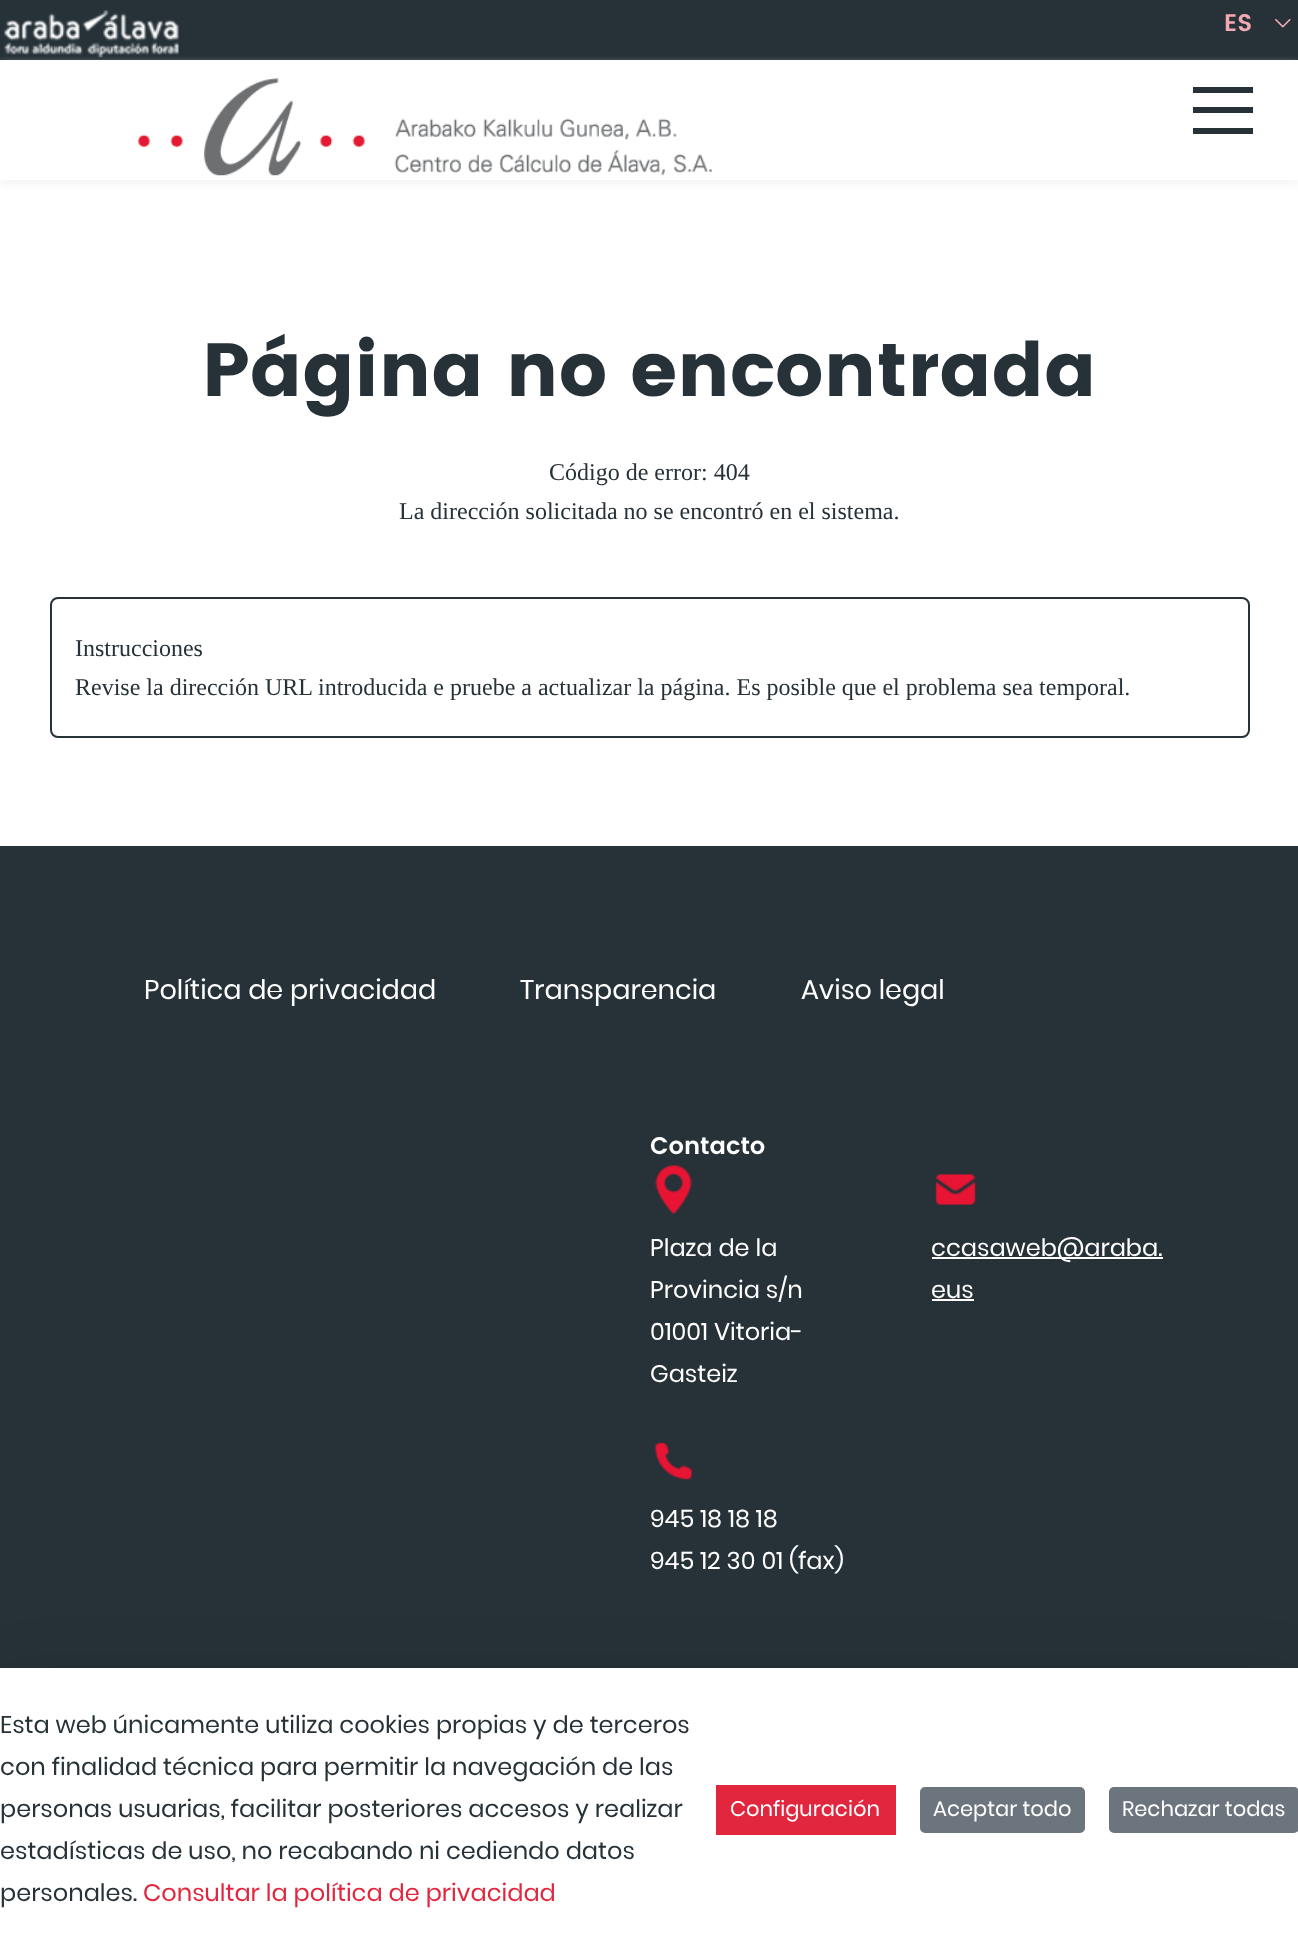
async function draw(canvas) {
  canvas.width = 1298
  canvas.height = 1950
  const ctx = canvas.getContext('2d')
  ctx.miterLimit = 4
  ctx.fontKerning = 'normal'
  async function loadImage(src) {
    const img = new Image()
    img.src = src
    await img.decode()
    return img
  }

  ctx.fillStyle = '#fff'
  ctx.fillRect(0, 0, 1298, 1950)
  ctx.fillStyle = '#263238'
  ctx.fillRect(0, 0, 1298, 60)
  ctx.save()
  ctx.beginPath()
  ctx.moveTo(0, 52)
  ctx.lineTo(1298, 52)
  ctx.lineTo(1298, 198)
  ctx.lineTo(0, 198)
  ctx.closePath()
  ctx.moveTo(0, 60)
  ctx.lineTo(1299, 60)
  ctx.lineTo(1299, 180)
  ctx.lineTo(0, 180)
  ctx.closePath()
  ctx.clip('evenodd')
  ctx.fillStyle = '#f5f5f5'
  ctx.filter = 'blur(4px)'
  ctx.beginPath()
  ctx.rect(0, 65, 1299, 120)
  ctx.fill()
  ctx.filter = 'none'
  ctx.restore()
  ctx.drawImage(await loadImage('image0.png'), 4, 10, 175, 48)
  ctx.font = '600 24px Poppins'
  ctx.fillStyle = '#f3a8b2'
  ctx.fillText('ES', 1224, 31)
  ctx.drawImage(await loadImage('image1.png'), 1275, 18, 16, 10)
  ctx.drawImage(await loadImage('image2.png'), 137, 77, 575, 99)
  ctx.fillStyle = '#263238'
  ctx.fillRect(1193, 107, 60, 6)
  ctx.fillRect(1193, 87, 60, 6)
  ctx.fillRect(1193, 128, 60, 6)
  ctx.font = 'bold 75px Poppins'
  ctx.fillText('Página no encontrada', 202, 396)
  ctx.font = '24px Liberation Serif'
  ctx.fillText('Código de error: 404', 549, 480)
  ctx.fillText('La dirección solicitada no se encontró en el sistema.', 399, 519)
  ctx.beginPath()
  ctx.roundRect(51, 598, 1198, 139, 7)
  ctx.strokeStyle = '#263238'
  ctx.lineWidth = 2
  ctx.stroke()
  ctx.fillText('Instrucciones', 75, 656)
  ctx.fillText('Revise la dirección URL introducida e pruebe a actualizar la página. Es posible que el problema sea temporal.', 75, 695)
  ctx.fillRect(0, 846, 1298, 822)
  ctx.font = '27px Poppins'
  ctx.fillStyle = '#fff'
  ctx.fillText('Política de privacidad', 144, 999)
  ctx.fillText('Transparencia', 520, 999)
  ctx.fillText('Aviso legal', 801, 999)
  ctx.font = '600 24px Poppins'
  ctx.fillText('Contacto', 650, 1154)
  ctx.drawImage(await loadImage('image3.png'), 655, 1165, 37, 49)
  ctx.font = '24px Poppins'
  ctx.fillText('Plaza de la', 650, 1256)
  ctx.fillText('Provincia s/n', 650, 1298)
  ctx.fillText('01001 Vitoria-', 650, 1340)
  ctx.fillText('Gasteiz', 650, 1382)
  ctx.drawImage(await loadImage('image4.png'), 655, 1442, 37, 38)
  ctx.fillText('945 18 18 18', 650, 1527)
  ctx.fillText('945 12 30 01 (fax)', 650, 1569)
  ctx.drawImage(await loadImage('image5.png'), 935, 1173, 41, 33)
  ctx.fillRect(932, 1257, 231, 2)
  ctx.fillText('ccasaweb@araba.', 931, 1256)
  ctx.fillText('eus', 931, 1298)
  ctx.fillRect(932, 1299, 42, 2)
  ctx.fillStyle = '#0000002e'
  ctx.filter = 'blur(36px)'
  ctx.beginPath()
  ctx.rect(0, 1692, 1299, 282)
  ctx.fill()
  ctx.filter = 'none'
  ctx.fillStyle = '#fff'
  ctx.fillRect(0, 1668, 1298, 282)
  ctx.fillStyle = '#263238'
  ctx.fillText('Esta web únicamente utiliza cookies propias y de terceros', 0, 1733)
  ctx.fillText('con finalidad técnica para permitir la navegación de las', 0, 1775)
  ctx.fillText('personas usuarias, facilitar posteriores accesos y realizar', 0, 1817)
  ctx.fillText('estadísticas de uso, no recabando ni cediendo datos', 0, 1859)
  ctx.fillText('personales.', 0, 1901)
  ctx.fillStyle = '#e2263e'
  ctx.fillText('Consultar la política de privacidad', 143, 1901)
  ctx.beginPath()
  ctx.rect(717.5, 1786.5, 177, 47)
  ctx.fill()
  ctx.strokeStyle = '#e2263e'
  ctx.lineWidth = 3
  ctx.stroke()
  ctx.font = '21px Poppins'
  ctx.fillStyle = '#fff'
  ctx.fillText('Configuración', 730, 1816)
  ctx.fillStyle = '#6c757d'
  ctx.beginPath()
  ctx.roundRect(921, 1788, 163, 44, 4)
  ctx.fill()
  ctx.strokeStyle = '#6c757d'
  ctx.lineWidth = 2
  ctx.stroke()
  ctx.fillStyle = '#fff'
  ctx.fillText('Aceptar todo', 933, 1816)
  ctx.fillStyle = '#6c757d'
  ctx.beginPath()
  ctx.roundRect(1110, 1788, 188, 44, 4)
  ctx.fill()
  ctx.stroke()
  ctx.fillStyle = '#fff'
  ctx.fillText('Rechazar todas', 1122, 1816)
}

draw(document.querySelector('canvas'))
